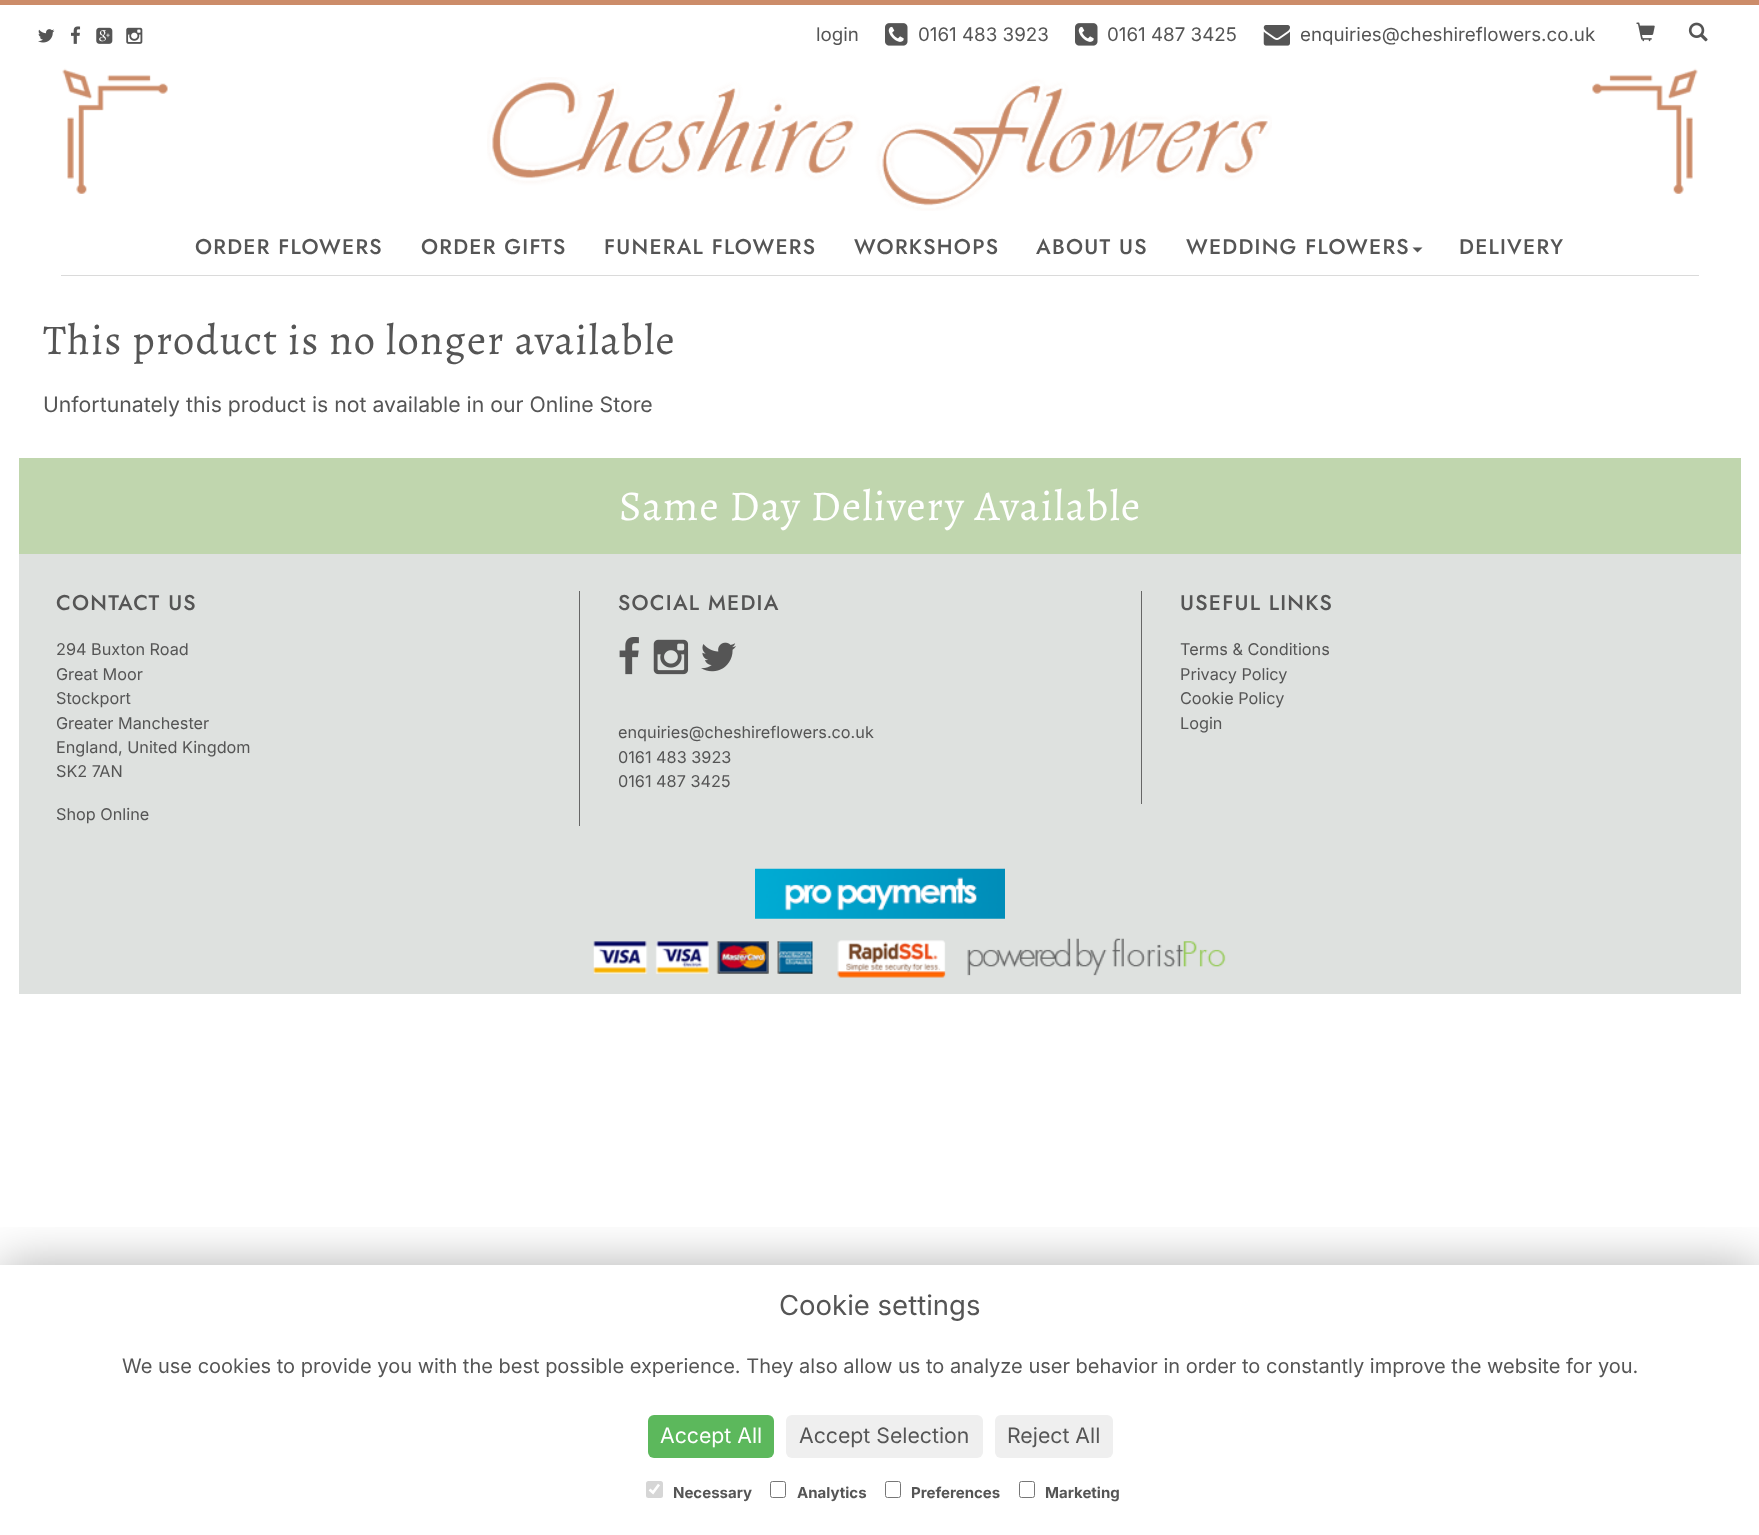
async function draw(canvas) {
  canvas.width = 1759
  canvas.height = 1535
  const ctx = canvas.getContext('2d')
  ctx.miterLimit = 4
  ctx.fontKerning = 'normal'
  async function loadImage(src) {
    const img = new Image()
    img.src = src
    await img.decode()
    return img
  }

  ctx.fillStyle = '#fff'
  ctx.fillRect(0, 0, 1759, 1535)
  ctx.fillStyle = '#cc8c69'
  ctx.fillRect(0, 0, 1759, 5)
  ctx.drawImage(await loadImage('image0.png'), 38, 29, 17, 14)
  ctx.drawImage(await loadImage('image1.png'), 71, 26, 10, 18)
  ctx.drawImage(await loadImage('image2.png'), 96, 27, 17, 17)
  ctx.drawImage(await loadImage('image3.png'), 126, 27, 17, 17)
  ctx.font = '18.75px Inter'
  ctx.fillStyle = '#555'
  ctx.fillText('login', 816, 41)
  ctx.drawImage(await loadImage('image4.png'), 885, 23, 23, 23)
  ctx.fillText('0161 483 3923', 918, 41)
  ctx.drawImage(await loadImage('image4.png'), 1075, 23, 23, 23)
  ctx.fillText('0161 487 3425', 1107, 41)
  ctx.drawImage(await loadImage('image5.png'), 1263, 25, 27, 21)
  ctx.fillText('enquiries@cheshireflowers.co.uk', 1300, 41)
  ctx.drawImage(await loadImage('image6.png'), 1636, 22, 19, 20)
  ctx.drawImage(await loadImage('image7.png'), 1688, 22, 20, 20)
  ctx.drawImage(await loadImage('image8.png'), 62, 68, 1636, 126)
  ctx.drawImage(await loadImage('image9.png'), 487, 77, 785, 134)
  ctx.fillStyle = '#dadada'
  ctx.fillRect(61, 275, 1638, 1)
  ctx.letterSpacing = '1.25px'
  ctx.font = '500 21.25px Jost'
  ctx.fillStyle = '#555'
  ctx.fillText('ORDER FLOWERS', 195, 254)
  ctx.fillText('ORDER GIFTS', 421, 254)
  ctx.fillText('FUNERAL FLOWERS', 604, 254)
  ctx.fillText('WORKSHOPS', 854, 254)
  ctx.fillText('ABOUT US', 1036, 254)
  ctx.fillText('WEDDING FLOWERS', 1186, 254)
  ctx.beginPath()
  ctx.moveTo(1412.5, 247.5)
  ctx.lineTo(1422.5, 247.5)
  ctx.lineTo(1417.5, 252.5)
  ctx.closePath()
  ctx.fill()
  ctx.fillText('DELIVERY', 1459, 254)
  ctx.font = '42.5px Alegreya'
  ctx.fillText('This product is no longer available', 43, 354)
  ctx.letterSpacing = '0px'
  ctx.font = '21.25px Inter'
  ctx.fillText('Unfortunately this product is not available in our Online Store', 43, 412)
  ctx.fillStyle = '#c0d6ae'
  ctx.fillRect(19, 458, 1722, 96)
  ctx.letterSpacing = '1.25px'
  ctx.font = '42.5px Alegreya'
  ctx.fillStyle = '#fff'
  ctx.fillText('Same Day Delivery Available', 619, 520)
  ctx.fillStyle = '#dee1df'
  ctx.fillRect(19, 554, 1722, 440)
  ctx.fillStyle = '#666'
  ctx.fillRect(579, 591, 1, 235)
  ctx.font = '500 21.25px Jost'
  ctx.fillStyle = '#555'
  ctx.fillText('CONTACT US', 56, 610)
  ctx.letterSpacing = '0px'
  ctx.font = '16.25px Inter'
  ctx.fillText('294 Buxton Road', 56, 655)
  ctx.fillText('Great Moor', 56, 680)
  ctx.fillText('Stockport', 56, 704)
  ctx.fillText('Greater Manchester', 56, 729)
  ctx.fillText('England, United Kingdom', 56, 753)
  ctx.fillText('SK2 7AN', 56, 777)
  ctx.fillText('Shop Online', 56, 820)
  ctx.fillStyle = '#666'
  ctx.fillRect(1141, 591, 1, 213)
  ctx.letterSpacing = '1.25px'
  ctx.font = '500 21.25px Jost'
  ctx.fillStyle = '#555'
  ctx.fillText('SOCIAL MEDIA', 618, 610)
  ctx.drawImage(await loadImage('image10.png'), 619, 637, 20, 38)
  ctx.drawImage(await loadImage('image11.png'), 653, 639, 36, 36)
  ctx.drawImage(await loadImage('image12.png'), 701, 642, 35, 30)
  ctx.letterSpacing = '0px'
  ctx.font = '16.25px Inter'
  ctx.fillText('enquiries@cheshireflowers.co.uk', 618, 738)
  ctx.fillText('0161 483 3923', 618, 763)
  ctx.fillText('0161 487 3425', 618, 787)
  ctx.letterSpacing = '1.25px'
  ctx.font = '500 21.25px Jost'
  ctx.fillText('USEFUL LINKS', 1180, 610)
  ctx.letterSpacing = '0px'
  ctx.font = '16.25px Inter'
  ctx.fillText('Terms & Conditions', 1180, 655)
  ctx.fillText('Privacy Policy', 1180, 680)
  ctx.fillText('Cookie Policy', 1180, 704)
  ctx.fillText('Login', 1180, 729)
  ctx.drawImage(await loadImage('image13.png'), 755, 868, 250, 51)
  ctx.drawImage(await loadImage('image14.png'), 593, 938, 633, 40)
  ctx.save()
  ctx.beginPath()
  ctx.rect(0, 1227, 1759, 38)
  ctx.clip()
  ctx.fillStyle = '#0000004f'
  ctx.filter = 'blur(25px)'
  ctx.beginPath()
  ctx.rect(0, 1265, 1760, 270)
  ctx.fill()
  ctx.filter = 'none'
  ctx.restore()
  ctx.font = '27.5px Inter'
  ctx.fillText('Cookie settings', 779, 1315)
  ctx.font = '20px Inter'
  ctx.fillText('We use cookies to provide you with the best possible experience. They also allow us to analyze user behavior in order to constantly improve the website for you.', 122, 1373)
  ctx.fillStyle = '#5cb85c'
  ctx.beginPath()
  ctx.roundRect(648, 1415, 126, 43, 6)
  ctx.fill()
  ctx.font = '21.25px Inter'
  ctx.fillStyle = '#fff'
  ctx.fillText('Accept All', 660, 1443)
  ctx.fillStyle = '#efefef'
  ctx.beginPath()
  ctx.roundRect(786, 1415, 197, 43, 6)
  ctx.fill()
  ctx.fillStyle = '#555'
  ctx.fillText('Accept Selection', 799, 1443)
  ctx.fillStyle = '#efefef'
  ctx.beginPath()
  ctx.roundRect(995, 1415, 118, 43, 6)
  ctx.fill()
  ctx.fillStyle = '#555'
  ctx.fillText('Reject All', 1007, 1443)
  ctx.fillStyle = '#d6d6d6'
  ctx.beginPath()
  ctx.roundRect(646, 1481, 17, 17, 2.5)
  ctx.fill()
  ctx.beginPath()
  ctx.moveTo(649.5, 1489.5)
  ctx.lineTo(653, 1492.5)
  ctx.lineTo(659, 1484.5)
  ctx.strokeStyle = '#fff'
  ctx.lineWidth = 2.6
  ctx.stroke()
  ctx.font = 'bold 15px Inter'
  ctx.fillStyle = '#555'
  ctx.fillText('Necessary', 673, 1498)
  ctx.beginPath()
  ctx.roundRect(770.5, 1481.5, 15, 16, 2)
  ctx.strokeStyle = '#767676'
  ctx.lineWidth = 1
  ctx.stroke()
  ctx.fillText('Analytics', 797, 1498)
  ctx.beginPath()
  ctx.roundRect(885.5, 1481.5, 15, 16, 2)
  ctx.stroke()
  ctx.fillText('Preferences', 911, 1498)
  ctx.beginPath()
  ctx.roundRect(1019.5, 1481.5, 15, 16, 2)
  ctx.stroke()
  ctx.fillText('Marketing', 1045, 1498)
}

draw(document.querySelector('canvas'))
